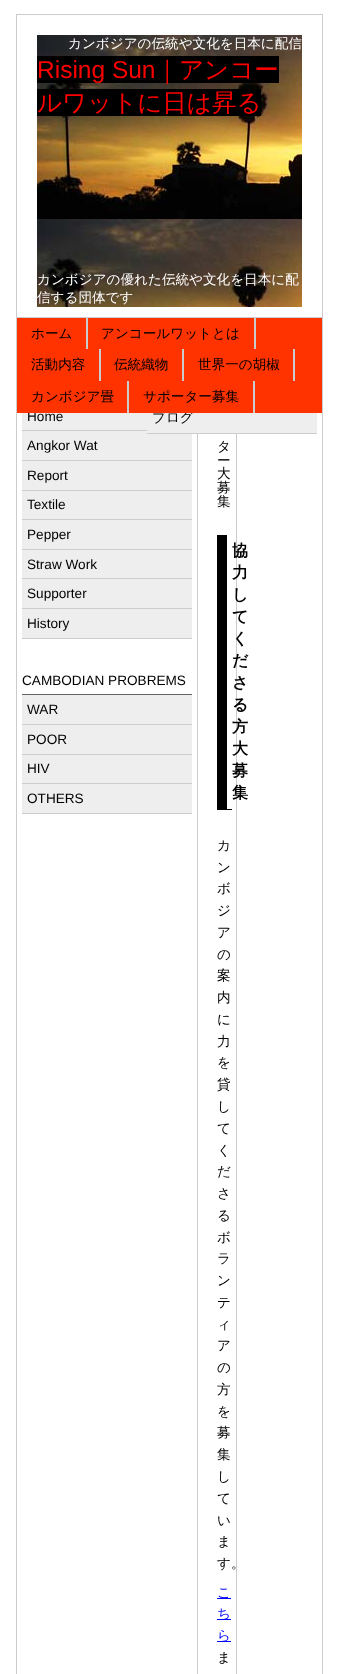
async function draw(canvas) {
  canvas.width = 339
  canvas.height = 1674
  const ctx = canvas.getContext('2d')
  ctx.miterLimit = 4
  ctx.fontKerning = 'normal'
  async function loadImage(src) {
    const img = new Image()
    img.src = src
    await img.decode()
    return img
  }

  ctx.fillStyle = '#fff'
  ctx.fillRect(0, 0, 339, 1674)
  ctx.strokeStyle = '#ccc'
  ctx.strokeRect(16.5, 14.5, 306, 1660)
  ctx.fillStyle = '#ccc'
  ctx.fillRect(17, 317, 305, 1)
  ctx.drawImage(await loadImage('image0.png'), 37, 35, 265, 272)
  ctx.font = '500 13.6px WenQuanYi Zen Hei'
  ctx.fillStyle = '#fff'
  ctx.fillText('カンボジアの伝統や文化を日本に配信', 68, 48)
  ctx.fillStyle = '#000'
  ctx.fillRect(37, 56, 242, 27)
  ctx.font = '24.5px Liberation Sans'
  ctx.fillStyle = '#f00'
  ctx.fillText('Rising Sun', 37, 78)
  ctx.font = '500 24.5px WenQuanYi Zen Hei'
  ctx.fillText('｜アンコー', 155, 78)
  ctx.fillStyle = '#000'
  ctx.fillRect(37, 89, 224, 27)
  ctx.fillStyle = '#f00'
  ctx.fillText('ルワットに日は昇る', 37, 111)
  ctx.font = '500 13.6px WenQuanYi Zen Hei'
  ctx.fillStyle = '#fff'
  ctx.fillText('カンボジアの優れた伝統や文化を日本に配', 37, 284)
  ctx.fillText('信する団体です', 37, 302)
  ctx.fillStyle = '#eee'
  ctx.fillRect(22, 431, 170, 29)
  ctx.fillRect(147, 413, 170, 20)
  ctx.fillStyle = '#000'
  ctx.fillText('ブログ', 152, 422)
  ctx.fillStyle = '#eee'
  ctx.fillRect(22, 413, 125, 17)
  ctx.font = '13.6px Liberation Sans'
  ctx.fillStyle = '#000'
  ctx.fillText('Home', 27, 421)
  ctx.fillStyle = '#f30'
  ctx.fillRect(17, 318, 305, 95)
  ctx.fillStyle = '#ccc'
  ctx.fillRect(86, 318, 2, 31)
  ctx.font = '500 13.6px WenQuanYi Zen Hei'
  ctx.fillStyle = '#000'
  ctx.fillText('ホーム', 31, 338)
  ctx.fillStyle = '#ccc'
  ctx.fillRect(254, 318, 2, 31)
  ctx.fillStyle = '#000'
  ctx.fillText('アンコールワットとは', 101, 338)
  ctx.fillStyle = '#ccc'
  ctx.fillRect(99, 349, 2, 32)
  ctx.fillStyle = '#000'
  ctx.fillText('活動内容', 31, 369)
  ctx.fillStyle = '#ccc'
  ctx.fillRect(182, 349, 2, 32)
  ctx.fillStyle = '#000'
  ctx.fillText('伝統織物', 114, 369)
  ctx.fillStyle = '#ccc'
  ctx.fillRect(293, 349, 2, 32)
  ctx.fillStyle = '#000'
  ctx.fillText('世界一の胡椒', 198, 369)
  ctx.fillStyle = '#ccc'
  ctx.fillRect(127, 381, 2, 32)
  ctx.fillStyle = '#000'
  ctx.fillText('カンボジア畳', 31, 401)
  ctx.fillStyle = '#ccc'
  ctx.fillRect(253, 381, 2, 32)
  ctx.fillStyle = '#000'
  ctx.fillText('サポーター募集', 143, 401)
  ctx.fillStyle = '#ccc'
  ctx.fillRect(147, 433, 170, 1)
  ctx.fillRect(22, 430, 125, 1)
  ctx.fillRect(22, 460, 170, 1)
  ctx.font = '13.6px Liberation Sans'
  ctx.fillStyle = '#000'
  ctx.fillText('Angkor Wat', 27, 450)
  ctx.fillStyle = '#eee'
  ctx.fillRect(22, 461, 170, 29)
  ctx.fillStyle = '#ccc'
  ctx.fillRect(22, 490, 170, 1)
  ctx.fillStyle = '#000'
  ctx.fillText('Report', 27, 480)
  ctx.fillStyle = '#eee'
  ctx.fillRect(22, 491, 170, 28)
  ctx.fillStyle = '#ccc'
  ctx.fillRect(22, 519, 170, 1)
  ctx.fillStyle = '#000'
  ctx.fillText('Textile', 27, 509)
  ctx.fillStyle = '#eee'
  ctx.fillRect(22, 520, 170, 29)
  ctx.fillStyle = '#ccc'
  ctx.fillRect(22, 549, 170, 1)
  ctx.fillStyle = '#000'
  ctx.fillText('Pepper', 27, 539)
  ctx.fillStyle = '#eee'
  ctx.fillRect(22, 550, 170, 28)
  ctx.fillStyle = '#ccc'
  ctx.fillRect(22, 578, 170, 1)
  ctx.fillStyle = '#000'
  ctx.fillText('Straw Work', 27, 569)
  ctx.fillStyle = '#eee'
  ctx.fillRect(22, 579, 170, 29)
  ctx.fillStyle = '#ccc'
  ctx.fillRect(22, 608, 170, 1)
  ctx.fillStyle = '#000'
  ctx.fillText('Supporter', 27, 598)
  ctx.fillStyle = '#eee'
  ctx.fillRect(22, 609, 170, 29)
  ctx.fillStyle = '#ccc'
  ctx.fillRect(22, 638, 170, 1)
  ctx.fillStyle = '#000'
  ctx.fillText('History', 27, 628)
  ctx.fillStyle = '#666'
  ctx.fillRect(22, 694, 170, 1)
  ctx.fillStyle = '#000'
  ctx.fillText('CAMBODIAN PROBREMS', 22, 685)
  ctx.fillStyle = '#eee'
  ctx.fillRect(22, 695, 170, 29)
  ctx.fillStyle = '#ccc'
  ctx.fillRect(22, 724, 170, 1)
  ctx.fillStyle = '#000'
  ctx.fillText('WAR', 27, 714)
  ctx.fillStyle = '#eee'
  ctx.fillRect(22, 725, 170, 29)
  ctx.fillStyle = '#ccc'
  ctx.fillRect(22, 754, 170, 1)
  ctx.fillStyle = '#000'
  ctx.fillText('POOR', 27, 744)
  ctx.fillStyle = '#eee'
  ctx.fillRect(22, 755, 170, 28)
  ctx.fillStyle = '#ccc'
  ctx.fillRect(22, 783, 170, 1)
  ctx.fillStyle = '#000'
  ctx.fillText('HIV', 27, 773)
  ctx.fillStyle = '#eee'
  ctx.fillRect(22, 784, 170, 29)
  ctx.fillStyle = '#ccc'
  ctx.fillRect(22, 813, 170, 1)
  ctx.fillStyle = '#000'
  ctx.fillText('OTHERS', 27, 803)
  ctx.fillStyle = '#ccc'
  ctx.fillRect(236, 434, 1, 1240)
  ctx.fillRect(197, 434, 1, 1240)
  ctx.font = '500 13.6px WenQuanYi Zen Hei'
  ctx.fillStyle = '#000'
  ctx.fillText('タ', 217, 451)
  ctx.fillText('ー', 217, 465)
  ctx.fillText('大', 217, 478)
  ctx.fillText('募', 217, 492)
  ctx.fillText('集', 217, 506)
  ctx.fillRect(227, 809, 5, 1)
  ctx.fillRect(217, 535, 10, 275)
  ctx.font = 'bold 16px WenQuanYi Zen Hei'
  ctx.fillText('協', 232, 556)
  ctx.fillText('力', 232, 578)
  ctx.fillText('し', 232, 600)
  ctx.fillText('て', 232, 622)
  ctx.fillText('く', 232, 644)
  ctx.fillText('だ', 232, 666)
  ctx.fillText('さ', 232, 688)
  ctx.fillText('る', 232, 710)
  ctx.fillText('方', 232, 732)
  ctx.fillText('大', 232, 754)
  ctx.fillText('募', 232, 776)
  ctx.fillText('集', 232, 798)
  ctx.font = '500 13.6px WenQuanYi Zen Hei'
  ctx.fillText('カ', 217, 850)
  ctx.fillText('ン', 217, 872)
  ctx.fillText('ボ', 217, 893)
  ctx.fillText('ジ', 217, 915)
  ctx.fillText('ア', 217, 937)
  ctx.fillText('の', 217, 959)
  ctx.fillText('案', 217, 980)
  ctx.fillText('内', 217, 1002)
  ctx.fillText('に', 217, 1024)
  ctx.fillText('力', 217, 1046)
  ctx.fillText('を', 217, 1067)
  ctx.fillText('貸', 217, 1089)
  ctx.fillText('し', 217, 1111)
  ctx.fillText('て', 217, 1133)
  ctx.fillText('く', 217, 1155)
  ctx.fillText('だ', 217, 1176)
  ctx.fillText('さ', 217, 1198)
  ctx.fillText('る', 217, 1220)
  ctx.fillText('ボ', 217, 1242)
  ctx.fillText('ラ', 217, 1263)
  ctx.fillText('ン', 217, 1285)
  ctx.fillText('テ', 217, 1307)
  ctx.fillText('ィ', 217, 1329)
  ctx.fillText('ア', 217, 1350)
  ctx.fillText('の', 217, 1372)
  ctx.fillText('方', 217, 1394)
  ctx.fillText('を', 217, 1416)
  ctx.fillText('募', 217, 1437)
  ctx.fillText('集', 217, 1459)
  ctx.fillText('し', 217, 1481)
  ctx.fillText('て', 217, 1503)
  ctx.fillText('い', 217, 1525)
  ctx.fillText('ま', 217, 1546)
  ctx.fillText('す。', 217, 1568)
  ctx.fillStyle = '#00f'
  ctx.fillRect(217, 1598, 14, 1)
  ctx.fillText('こ', 217, 1597)
  ctx.fillRect(217, 1619, 14, 1)
  ctx.fillText('ち', 217, 1618)
  ctx.fillRect(217, 1641, 14, 1)
  ctx.fillText('ら', 217, 1640)
  ctx.fillStyle = '#000'
  ctx.fillText('ま', 217, 1662)
}

draw(document.querySelector('canvas'))
